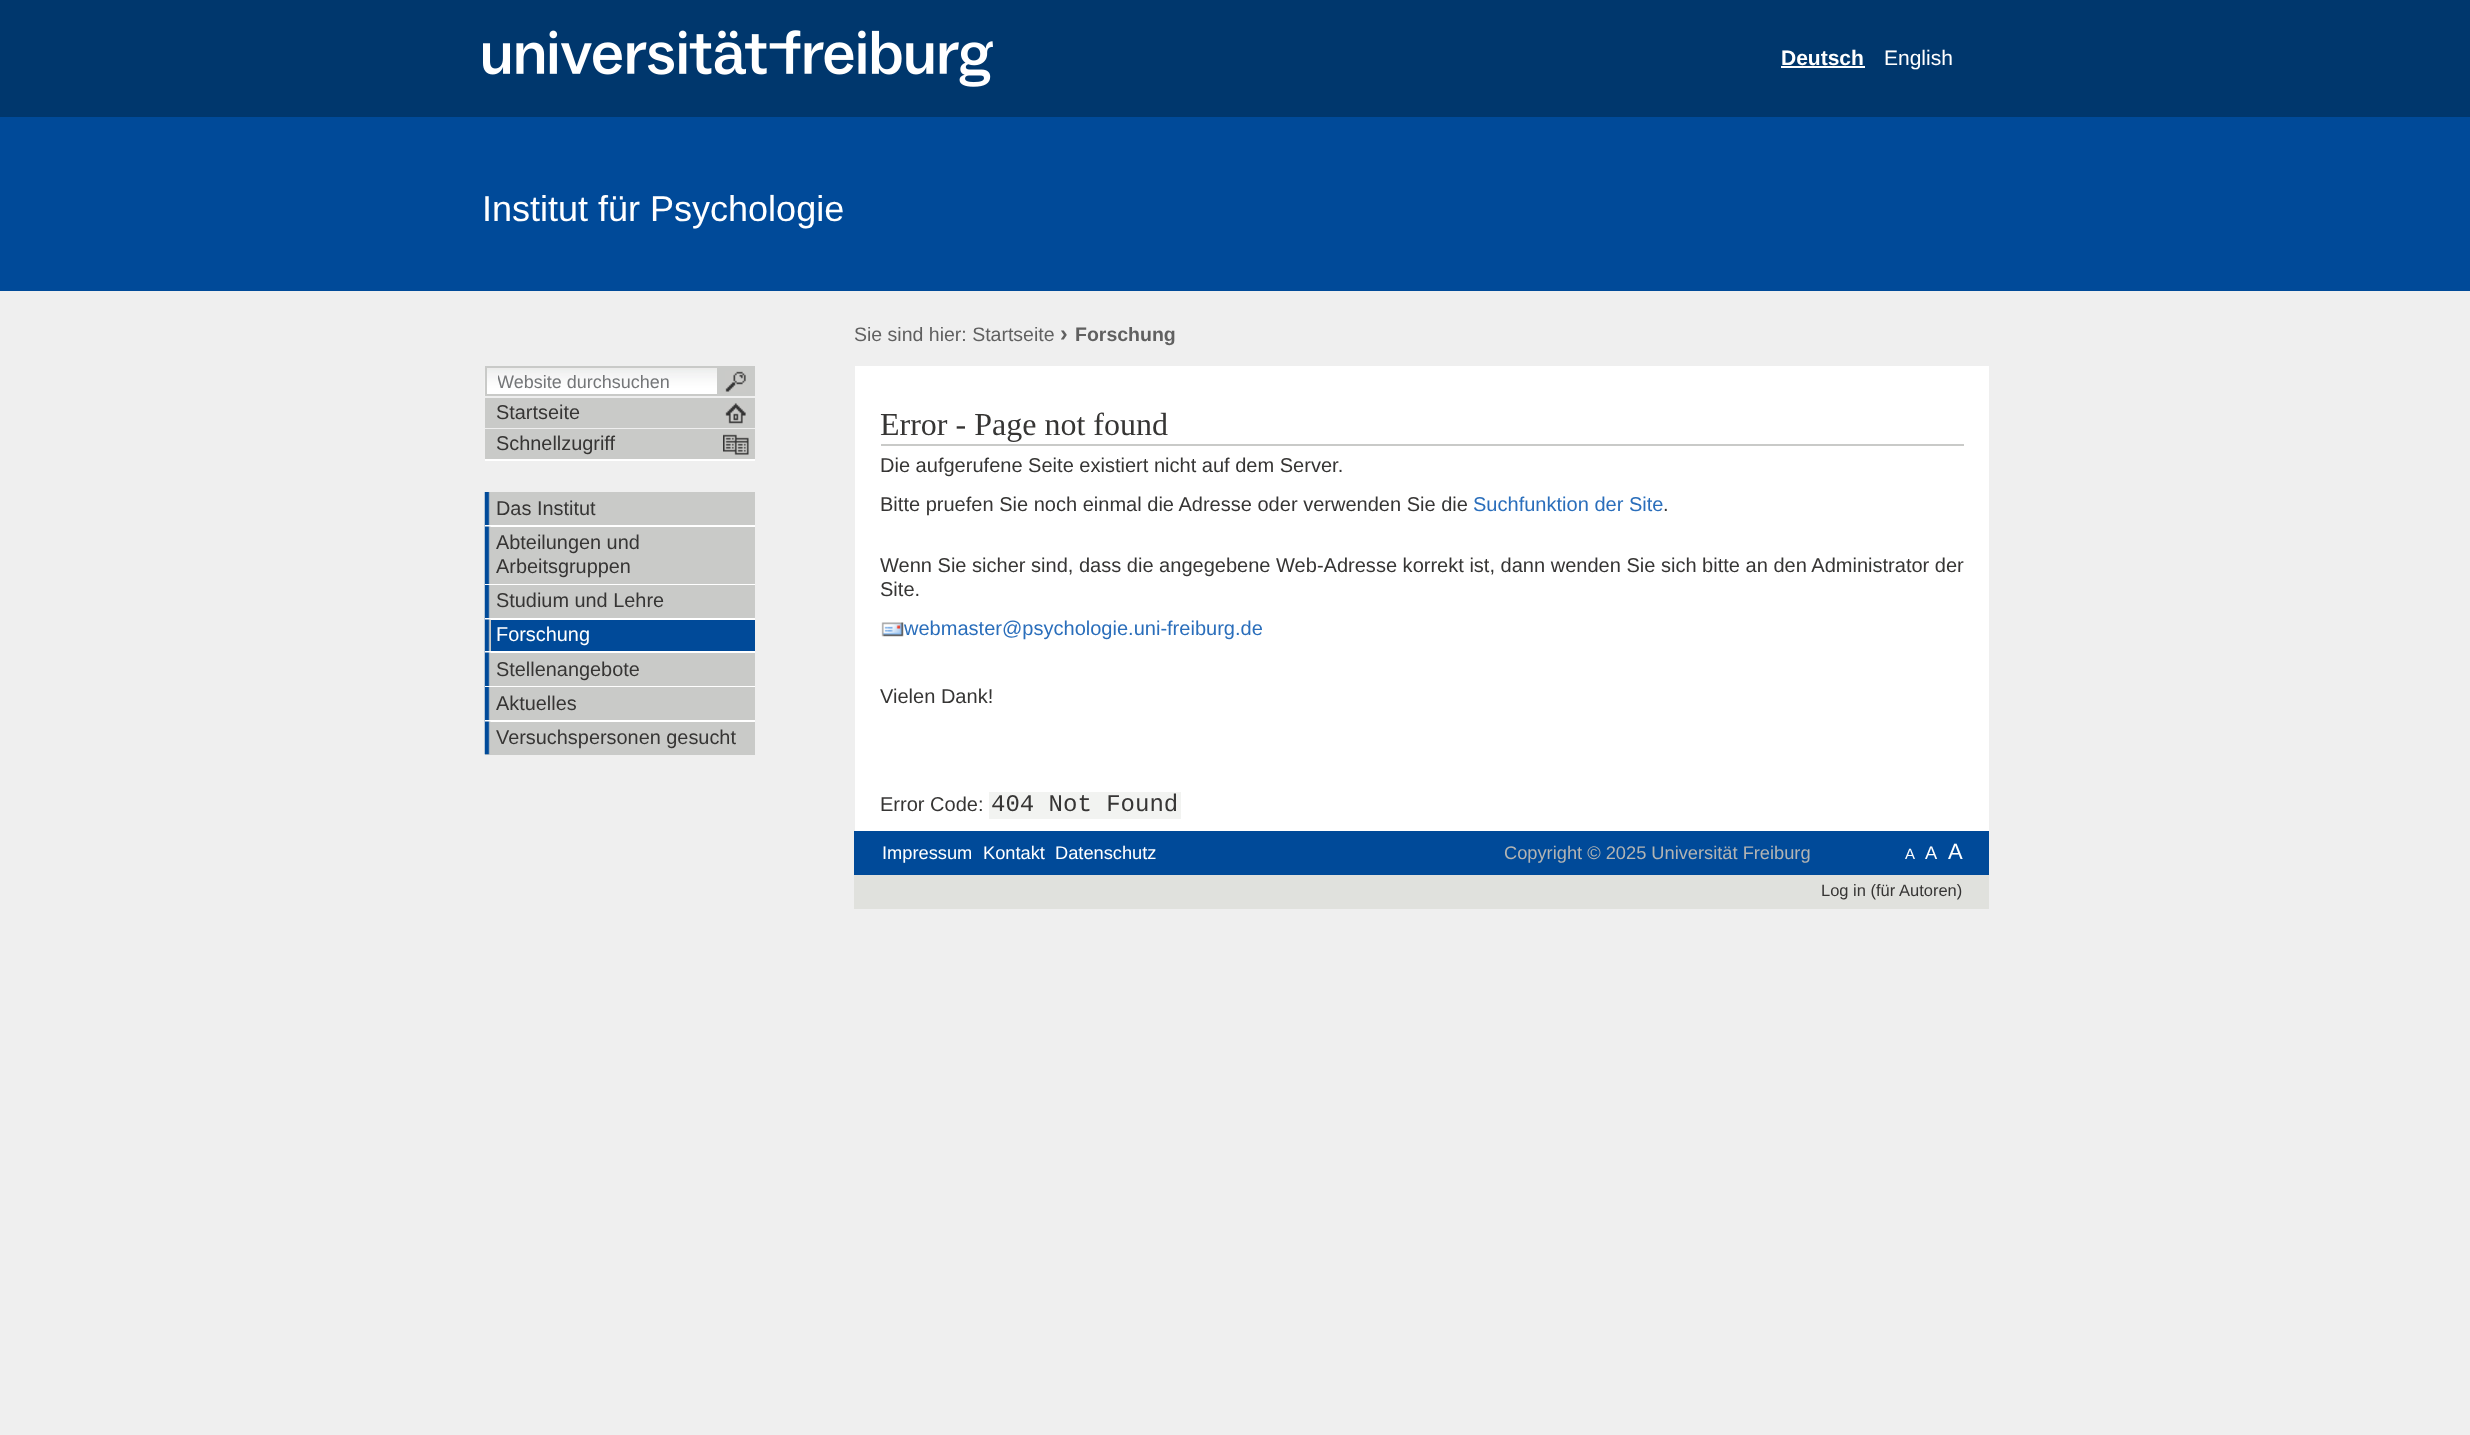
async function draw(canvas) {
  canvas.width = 2470
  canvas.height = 1435
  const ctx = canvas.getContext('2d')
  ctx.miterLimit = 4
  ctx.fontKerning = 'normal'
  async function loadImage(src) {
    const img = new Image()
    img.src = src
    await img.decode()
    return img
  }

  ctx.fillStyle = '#efefef'
  ctx.fillRect(0, 0, 2470, 1435)
  ctx.fillStyle = '#00376d'
  ctx.fillRect(0, 0, 2470, 117)
  ctx.drawImage(await loadImage('image0.png'), 483, 30, 510, 57)
  ctx.font = 'bold 21px Liberation Sans'
  ctx.fillStyle = '#fff'
  ctx.fillText('Deutsch', 1781, 65)
  ctx.fillRect(1781, 66, 84, 2)
  ctx.font = '21px Liberation Sans'
  ctx.fillText('English', 1884, 65)
  ctx.fillStyle = '#004a99'
  ctx.fillRect(0, 117, 2470, 174)
  ctx.font = '36px Liberation Sans'
  ctx.fillStyle = '#fff'
  ctx.fillText('Institut für Psychologie', 482, 221)
  ctx.font = '19.5px Liberation Sans'
  ctx.fillStyle = '#606060'
  ctx.fillText('Sie sind hier: Startseite', 854, 341)
  ctx.font = 'bold 23px Liberation Sans'
  ctx.fillText('›', 1060, 341)
  ctx.font = 'bold 19.5px Liberation Sans'
  ctx.fillText('Forschung', 1075, 341)
  ctx.drawImage(await loadImage('image1.png'), 484, 367, 233, 29)
  ctx.strokeStyle = '#c9cac8'
  ctx.lineWidth = 2
  ctx.strokeRect(486, 367, 232, 28)
  ctx.save()
  ctx.beginPath()
  ctx.rect(498, 372, 219, 21)
  ctx.clip()
  ctx.font = '18px Liberation Sans'
  ctx.fillStyle = '#747678'
  ctx.fillText('Website durchsuchen', 497, 388)
  ctx.restore()
  ctx.fillStyle = '#c9cac8'
  ctx.fillRect(719, 366, 36, 30)
  ctx.drawImage(await loadImage('image2.png'), 725, 371, 21, 21)
  ctx.fillRect(485, 398, 270, 30)
  ctx.drawImage(await loadImage('image3.png'), 725, 403, 21, 21)
  ctx.font = '19.9px Liberation Sans'
  ctx.fillStyle = '#363534'
  ctx.fillText('Startseite', 496, 419)
  ctx.fillStyle = '#c9cac8'
  ctx.fillRect(485, 429, 270, 30)
  ctx.drawImage(await loadImage('image4.png'), 723, 434, 26, 21)
  ctx.fillStyle = '#fff'
  ctx.fillRect(485, 459, 270, 2)
  ctx.fillStyle = '#363534'
  ctx.fillText('Schnellzugriff', 496, 450)
  ctx.fillStyle = '#c9cac8'
  ctx.fillRect(490, 492, 265, 33)
  ctx.drawImage(await loadImage('image5.png'), 484, 492, 6, 35)
  ctx.fillStyle = '#fff'
  ctx.fillRect(485, 525, 270, 2)
  ctx.fillStyle = '#363534'
  ctx.fillText('Das Institut', 496, 515)
  ctx.fillStyle = '#c9cac8'
  ctx.fillRect(490, 527, 265, 57)
  ctx.drawImage(await loadImage('image6.png'), 484, 526, 7, 59)
  ctx.fillStyle = '#fff'
  ctx.fillRect(485, 584, 270, 1)
  ctx.fillStyle = '#363534'
  ctx.fillText('Abteilungen und', 496, 549)
  ctx.fillText('Arbeitsgruppen', 496, 573)
  ctx.fillStyle = '#c9cac8'
  ctx.fillRect(490, 585, 265, 33)
  ctx.drawImage(await loadImage('image5.png'), 484, 585, 6, 35)
  ctx.fillStyle = '#fff'
  ctx.fillRect(485, 618, 270, 2)
  ctx.fillStyle = '#363534'
  ctx.fillText('Studium und Lehre', 496, 607)
  ctx.fillStyle = '#c9cac8'
  ctx.fillRect(490, 620, 1, 31)
  ctx.drawImage(await loadImage('image7.png'), 484, 619, 7, 34)
  ctx.fillStyle = '#fff'
  ctx.fillRect(485, 651, 270, 2)
  ctx.fillStyle = '#004a99'
  ctx.fillRect(491, 620, 264, 31)
  ctx.fillStyle = '#fff'
  ctx.fillText('Forschung', 496, 641)
  ctx.fillStyle = '#c9cac8'
  ctx.fillRect(490, 653, 265, 33)
  ctx.drawImage(await loadImage('image8.png'), 484, 652, 7, 35)
  ctx.fillStyle = '#fff'
  ctx.fillRect(485, 686, 270, 1)
  ctx.fillStyle = '#363534'
  ctx.fillText('Stellenangebote', 496, 676)
  ctx.fillStyle = '#c9cac8'
  ctx.fillRect(490, 687, 265, 33)
  ctx.drawImage(await loadImage('image5.png'), 484, 687, 6, 35)
  ctx.fillStyle = '#fff'
  ctx.fillRect(485, 720, 270, 2)
  ctx.fillStyle = '#363534'
  ctx.fillText('Aktuelles', 496, 710)
  ctx.fillStyle = '#c9cac8'
  ctx.fillRect(485, 722, 270, 33)
  ctx.drawImage(await loadImage('image9.png'), 484, 721, 7, 34)
  ctx.fillStyle = '#363534'
  ctx.fillText('Versuchspersonen gesucht', 496, 744)
  ctx.fillStyle = '#fff'
  ctx.fillRect(855, 366, 1134, 465)
  ctx.fillStyle = '#c9cac8'
  ctx.fillRect(881, 444, 1083, 2)
  ctx.font = '32px Liberation Serif'
  ctx.fillStyle = '#363534'
  ctx.fillText('Error - Page not found', 880, 435)
  ctx.font = '20.05px Liberation Sans'
  ctx.fillText('Die aufgerufene Seite existiert nicht auf dem Server.', 880, 472)
  ctx.fillText('Bitte pruefen Sie noch einmal die Adresse oder verwenden Sie die', 880, 511)
  ctx.fillStyle = '#2a6ebb'
  ctx.fillText('Suchfunktion der Site', 1473, 511)
  ctx.fillStyle = '#363534'
  ctx.fillText('.', 1663, 511)
  ctx.fillText('Wenn Sie sicher sind, dass die angegebene Web-Adresse korrekt ist, dann wenden Sie sich bitte an den Administrator der', 880, 572)
  ctx.fillText('Site.', 880, 596)
  ctx.drawImage(await loadImage('image10.png'), 881, 622, 23, 15)
  ctx.fillStyle = '#2a6ebb'
  ctx.fillText('webmaster@psychologie.uni-freiburg.de', 904, 635)
  ctx.fillStyle = '#363534'
  ctx.fillText('Vielen Dank!', 880, 703)
  ctx.fillText('Error Code:', 880, 811)
  ctx.fillStyle = '#f2f3f1'
  ctx.fillRect(989, 792, 192, 27)
  ctx.font = '24px Liberation Mono'
  ctx.fillStyle = '#363534'
  ctx.fillText('404 Not Found', 991, 811)
  ctx.fillStyle = '#004a99'
  ctx.fillRect(854, 831, 1135, 44)
  ctx.font = '18.25px Liberation Sans'
  ctx.fillStyle = '#fff'
  ctx.fillText('Impressum', 882, 859)
  ctx.fillText('Kontakt', 983, 859)
  ctx.fillText('Datenschutz', 1055, 859)
  ctx.fillStyle = '#b2b4b3'
  ctx.fillText('Copyright © 2025 Universität Freiburg', 1504, 859)
  ctx.font = '15px Liberation Sans'
  ctx.fillStyle = '#fff'
  ctx.fillText('A', 1905, 859)
  ctx.font = '18.25px Liberation Sans'
  ctx.fillText('A', 1925, 859)
  ctx.font = '22px Liberation Sans'
  ctx.fillText('A', 1948, 859)
  ctx.fillStyle = '#e0e1dd'
  ctx.fillRect(854, 875, 1135, 34)
  ctx.font = '16.5px Liberation Sans'
  ctx.fillStyle = '#363534'
  ctx.fillText('Log in (für Autoren)', 1821, 896)
}

draw(document.querySelector('canvas'))
